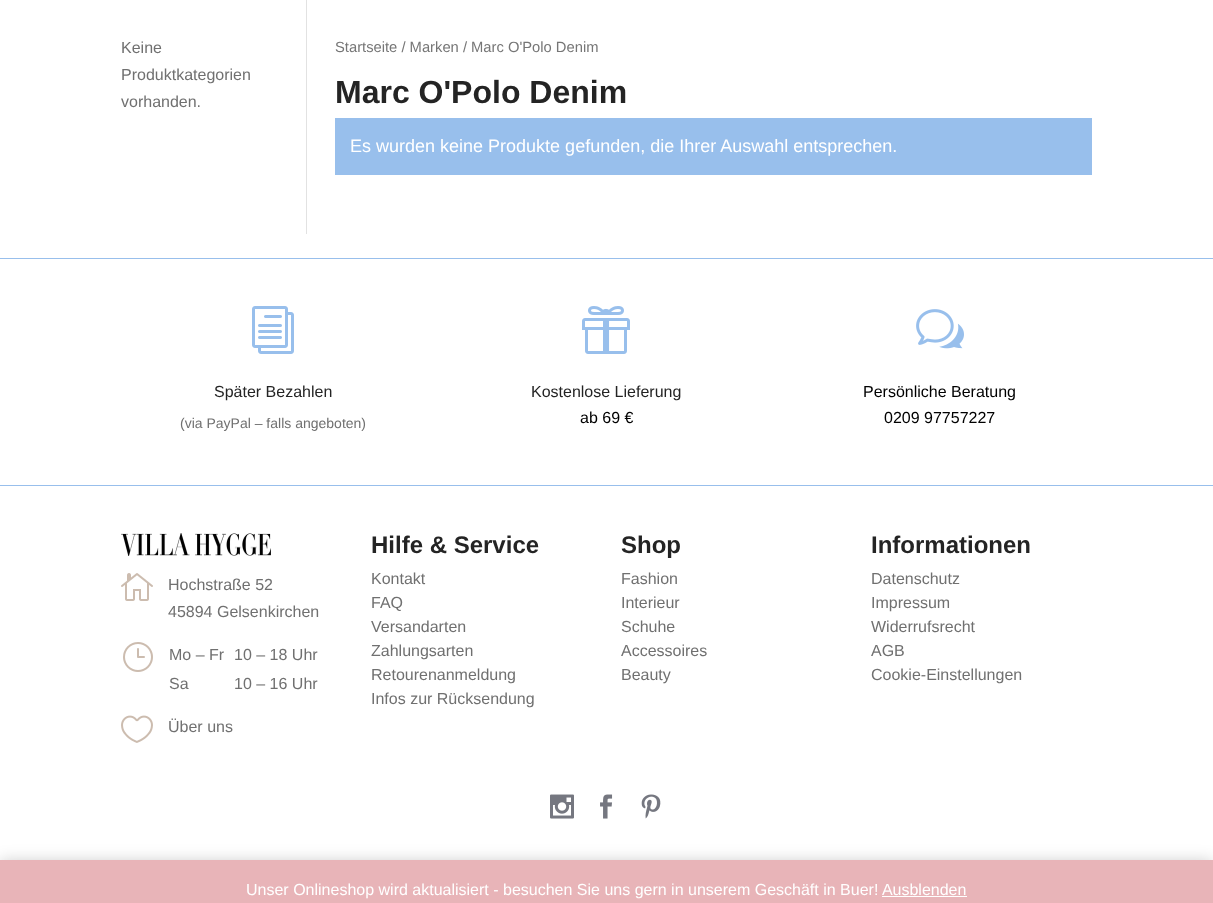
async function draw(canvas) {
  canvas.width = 1213
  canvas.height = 903
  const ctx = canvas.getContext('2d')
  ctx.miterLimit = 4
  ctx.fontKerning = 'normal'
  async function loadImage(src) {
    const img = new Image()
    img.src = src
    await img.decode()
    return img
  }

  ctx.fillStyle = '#fff'
  ctx.fillRect(0, 0, 1213, 903)
  ctx.fillStyle = '#e2e2e2'
  ctx.fillRect(306, 0, 1, 234)
  ctx.font = '16px Liberation Sans'
  ctx.fillStyle = '#707070'
  ctx.fillText('Keine', 121, 53)
  ctx.fillText('Produktkategorien', 121, 80)
  ctx.fillText('vorhanden.', 121, 107)
  ctx.font = '14.75px Liberation Sans'
  ctx.fillStyle = '#767676'
  ctx.fillText('Startseite / Marken / Marc O\'Polo Denim', 335, 52)
  ctx.font = 'bold 32px Liberation Sans'
  ctx.fillStyle = '#242424'
  ctx.fillText('Marc O\'Polo Denim', 335, 103)
  ctx.fillStyle = '#98bfec'
  ctx.fillRect(335, 118, 757, 57)
  ctx.font = '18px Liberation Sans'
  ctx.fillStyle = '#fff'
  ctx.fillText('Es wurden keine Produkte gefunden, die Ihrer Auswahl entsprechen.', 350, 152)
  ctx.fillStyle = '#98bfec'
  ctx.fillRect(0, 258, 1213, 1)
  ctx.drawImage(await loadImage('image0.png'), 252, 306, 42, 48)
  ctx.font = '16px Liberation Sans'
  ctx.fillStyle = '#242424'
  ctx.fillText('Später Bezahlen', 214, 397)
  ctx.font = '14px Liberation Sans'
  ctx.fillStyle = '#707070'
  ctx.fillText('(via PayPal – falls angeboten)', 180, 428)
  ctx.drawImage(await loadImage('image1.png'), 582, 306, 48, 48)
  ctx.font = '16px Liberation Sans'
  ctx.fillStyle = '#242424'
  ctx.fillText('Kostenlose Lieferung', 531, 397)
  ctx.fillStyle = '#000'
  ctx.fillText('ab 69 €', 580, 423)
  ctx.drawImage(await loadImage('image2.png'), 916, 309, 48, 40)
  ctx.fillText('Persönliche Beratung', 863, 397)
  ctx.fillText('0209 97757227', 884, 423)
  ctx.fillStyle = '#98bfec'
  ctx.fillRect(0, 485, 1213, 1)
  ctx.drawImage(await loadImage('image3.png'), 121, 533, 150, 23)
  ctx.drawImage(await loadImage('image4.png'), 121, 573, 32, 28)
  ctx.fillStyle = '#707070'
  ctx.fillText('Hochstraße 52', 168, 590)
  ctx.fillText('45894 Gelsenkirchen', 168, 617)
  ctx.drawImage(await loadImage('image5.png'), 123, 642, 30, 30)
  ctx.fillText('Mo – Fr', 169, 660)
  ctx.fillText('10 – 18 Uhr', 234, 660)
  ctx.fillText('Sa', 169, 689)
  ctx.fillText('10 – 16 Uhr', 234, 689)
  ctx.drawImage(await loadImage('image6.png'), 121, 715, 32, 28)
  ctx.fillText('Über uns', 168, 732)
  ctx.font = 'bold 24px Liberation Sans'
  ctx.fillStyle = '#242424'
  ctx.fillText('Hilfe & Service', 371, 553)
  ctx.font = '16px Liberation Sans'
  ctx.fillStyle = '#707070'
  ctx.fillText('Kontakt', 371, 584)
  ctx.fillText('FAQ', 371, 608)
  ctx.fillText('Versandarten', 371, 632)
  ctx.fillText('Zahlungsarten', 371, 656)
  ctx.fillText('Retourenanmeldung', 371, 680)
  ctx.fillText('Infos zur Rücksendung', 371, 704)
  ctx.font = 'bold 24px Liberation Sans'
  ctx.fillStyle = '#242424'
  ctx.fillText('Shop', 621, 553)
  ctx.font = '16px Liberation Sans'
  ctx.fillStyle = '#707070'
  ctx.fillText('Fashion', 621, 584)
  ctx.fillText('Interieur', 621, 608)
  ctx.fillText('Schuhe', 621, 632)
  ctx.fillText('Accessoires', 621, 656)
  ctx.fillText('Beauty', 621, 680)
  ctx.font = 'bold 24px Liberation Sans'
  ctx.fillStyle = '#242424'
  ctx.fillText('Informationen', 871, 553)
  ctx.font = '16px Liberation Sans'
  ctx.fillStyle = '#707070'
  ctx.fillText('Datenschutz', 871, 584)
  ctx.fillText('Impressum', 871, 608)
  ctx.fillText('Widerrufsrecht', 871, 632)
  ctx.fillText('AGB', 871, 656)
  ctx.fillText('Cookie-Einstellungen', 871, 680)
  ctx.drawImage(await loadImage('image7.png'), 550, 794, 24, 25)
  ctx.drawImage(await loadImage('image8.png'), 600, 794, 13, 25)
  ctx.drawImage(await loadImage('image9.png'), 641, 794, 20, 25)
  ctx.fillStyle = '#00000033'
  ctx.filter = 'blur(8px)'
  ctx.beginPath()
  ctx.rect(0, 861, 1213, 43)
  ctx.fill()
  ctx.filter = 'none'
  ctx.fillStyle = '#e8b4b8'
  ctx.fillRect(0, 860, 1213, 43)
  ctx.fillStyle = '#fff'
  ctx.fillText('Unser Onlineshop wird aktualisiert - besuchen Sie uns gern in unserem Geschäft in Buer! Ausblenden', 246, 895)
  ctx.fillRect(882, 896, 85, 1)
}

draw(document.querySelector('canvas'))
